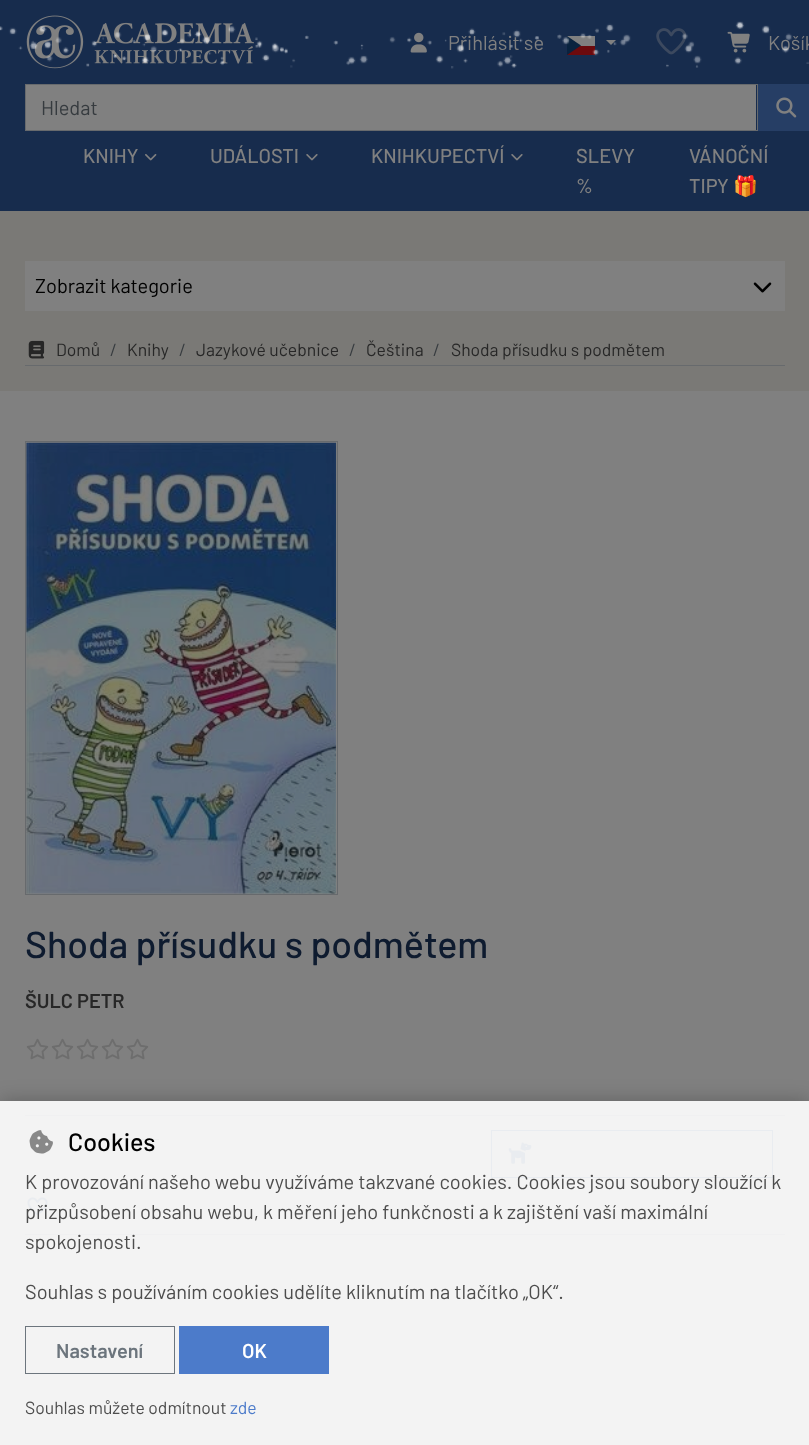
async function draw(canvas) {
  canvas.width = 809
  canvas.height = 1445
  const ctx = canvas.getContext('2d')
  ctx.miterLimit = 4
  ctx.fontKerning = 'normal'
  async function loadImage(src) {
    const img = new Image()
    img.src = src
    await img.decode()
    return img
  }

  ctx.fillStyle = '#7a7976'
  ctx.fillRect(0, 0, 809, 1445)
  ctx.fillStyle = '#172c4d'
  ctx.fillRect(0, 0, 809, 211)
  ctx.drawImage(await loadImage('image1.png'), 26, 15, 228, 54)
  ctx.drawImage(await loadImage('image2.png'), 410, 32, 17, 21)
  ctx.font = '20px Barlow'
  ctx.fillStyle = '#808080'
  ctx.fillText('Přihlásit se', 448, 50)
  ctx.fillRect(567, 36, 28, 10)
  ctx.fillStyle = '#6c0a0d'
  ctx.fillRect(567, 46, 28, 9)
  ctx.fillStyle = '#09233f'
  ctx.beginPath()
  ctx.moveTo(581, 45.5)
  ctx.lineTo(567, 36)
  ctx.lineTo(567, 55)
  ctx.closePath()
  ctx.fill()
  ctx.fillStyle = '#808080'
  ctx.beginPath()
  ctx.moveTo(606, 40)
  ctx.lineTo(616, 40)
  ctx.lineTo(611, 45)
  ctx.closePath()
  ctx.fill()
  ctx.drawImage(await loadImage('image3.png'), 656, 28, 31, 27)
  ctx.drawImage(await loadImage('image4.png'), 727, 31, 23, 22)
  ctx.fillText('Košík', 768, 50)
  ctx.drawImage(await loadImage('image0.png'), 0, 21, 809, 48)
  ctx.fillRect(26, 85, 730, 45)
  ctx.strokeStyle = '#676a6d'
  ctx.strokeRect(25.5, 84.5, 732, 46)
  ctx.fillStyle = '#363b3f'
  ctx.fillText('Hledat', 41, 115)
  ctx.fillStyle = '#263e65'
  ctx.fillRect(758, 84, 51, 47)
  ctx.drawImage(await loadImage('image5.png'), 776, 97, 21, 21)
  ctx.font = '500 20px Barlow'
  ctx.fillStyle = '#808080'
  ctx.fillText('KNIHY', 83, 163)
  ctx.drawImage(await loadImage('image6.png'), 145, 154, 12, 7)
  ctx.fillText('UDÁLOSTI', 210, 163)
  ctx.drawImage(await loadImage('image7.png'), 306, 154, 12, 7)
  ctx.fillText('KNIHKUPECTVÍ', 371, 163)
  ctx.drawImage(await loadImage('image7.png'), 511, 154, 12, 7)
  ctx.fillText('SLEVY', 576, 163)
  ctx.fillText('%', 576, 193)
  ctx.fillText('VÁNOČNÍ', 689, 163)
  ctx.fillText('TIPY', 689, 193)
  ctx.font = '20px Noto Color Emoji'
  ctx.fillText('🎁', 733, 193)
  ctx.fillRect(25, 261, 760, 50)
  ctx.font = '20px Barlow'
  ctx.fillStyle = '#000'
  ctx.fillText('Zobrazit kategorie', 35, 293)
  ctx.drawImage(await loadImage('image8.png'), 753, 282, 19, 11)
  ctx.fillStyle = '#676a6d'
  ctx.fillRect(25, 365, 760, 1)
  ctx.drawImage(await loadImage('image9.png'), 28, 340, 17, 19)
  ctx.font = '17.5px Barlow'
  ctx.fillStyle = '#272727'
  ctx.fillText('Domů', 56, 356)
  ctx.fillStyle = '#363b3f'
  ctx.fillText('/', 110, 356)
  ctx.fillStyle = '#272727'
  ctx.fillText('Knihy', 127, 356)
  ctx.fillStyle = '#363b3f'
  ctx.fillText('/', 179, 356)
  ctx.fillStyle = '#272727'
  ctx.fillText('Jazykové učebnice', 196, 356)
  ctx.fillStyle = '#363b3f'
  ctx.fillText('/', 349, 356)
  ctx.fillStyle = '#272727'
  ctx.fillText('Čeština', 366, 356)
  ctx.fillStyle = '#363b3f'
  ctx.fillText('/', 433, 356)
  ctx.fillStyle = '#272727'
  ctx.fillText('Shoda přísudku s podmětem', 451, 356)
  ctx.fillStyle = '#808080'
  ctx.fillRect(0, 391, 809, 1054)
  ctx.strokeRect(25.5, 441.5, 312, 453)
  ctx.drawImage(await loadImage('image10.png'), 26, 442, 311, 452)
  ctx.font = '500 37.5px Barlow'
  ctx.fillStyle = '#0e1b2f'
  ctx.fillText('Shoda přísudku s podmětem', 25, 958)
  ctx.font = '600 20px Barlow'
  ctx.fillStyle = '#272727'
  ctx.fillText('ŠULC PETR', 25, 1008)
  ctx.drawImage(await loadImage('image11.png'), 26, 1038, 23, 22)
  ctx.drawImage(await loadImage('image11.png'), 51, 1038, 23, 22)
  ctx.drawImage(await loadImage('image11.png'), 76, 1038, 23, 22)
  ctx.drawImage(await loadImage('image11.png'), 101, 1038, 23, 22)
  ctx.drawImage(await loadImage('image11.png'), 126, 1038, 23, 22)
  ctx.fillStyle = '#676a6d'
  ctx.fillRect(25, 1115, 760, 1)
  ctx.fillRect(25, 1234, 760, 1)
  ctx.fillStyle = '#575b5f'
  ctx.fillRect(83, 1139, 48, 1)
  ctx.fillRect(135, 1139, 24, 1)
  ctx.strokeStyle = '#263e65'
  ctx.strokeRect(491.5, 1130.5, 281, 47)
  ctx.drawImage(await loadImage('image12.png'), 508, 1142, 24, 22)
  ctx.drawImage(await loadImage('image13.png'), 27, 1197, 21, 18)
  ctx.save()
  ctx.beginPath()
  ctx.moveTo(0, 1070)
  ctx.lineTo(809, 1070)
  ctx.lineTo(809, 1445)
  ctx.lineTo(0, 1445)
  ctx.closePath()
  ctx.moveTo(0, 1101)
  ctx.lineTo(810, 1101)
  ctx.lineTo(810, 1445)
  ctx.lineTo(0, 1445)
  ctx.closePath()
  ctx.clip('evenodd')
  ctx.fillStyle = '#00000040'
  ctx.filter = 'blur(10px)'
  ctx.beginPath()
  ctx.rect(0, 1101, 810, 344)
  ctx.fill()
  ctx.filter = 'none'
  ctx.restore()
  ctx.fillStyle = '#ffffffe6'
  ctx.fillRect(0, 1101, 809, 344)
  ctx.drawImage(await loadImage('image14.png'), 29, 1130, 24, 24)
  ctx.font = '500 25px Barlow'
  ctx.fillStyle = '#000'
  ctx.fillText('Cookies', 68, 1151)
  ctx.font = '20px Barlow'
  ctx.fillStyle = '#4d4d4d'
  ctx.fillText('K provozování našeho webu využíváme takzvané cookies. Cookies jsou soubory sloužící k', 25, 1189)
  ctx.fillText('přizpůsobení obsahu webu, k měření jeho funkčnosti a k zajištění vaší maximální', 25, 1219)
  ctx.fillText('spokojenosti.', 25, 1249)
  ctx.fillText('Souhlas s používáním cookies udělíte kliknutím na tlačítko „OK“.', 25, 1299)
  ctx.strokeStyle = '#6c757d'
  ctx.strokeRect(25.5, 1326.5, 149, 47)
  ctx.font = '600 20px Barlow'
  ctx.fillStyle = '#6c757d'
  ctx.fillText('Nastavení', 56, 1358)
  ctx.fillStyle = '#4c7bca'
  ctx.fillRect(179, 1326, 150, 48)
  ctx.fillStyle = '#fff'
  ctx.fillText('OK', 242, 1358)
  ctx.font = '17.5px Barlow'
  ctx.fillStyle = '#4d4d4d'
  ctx.fillText('Souhlas můžete odmítnout', 25, 1414)
  ctx.fillStyle = '#4c7bca'
  ctx.fillText('zde', 230, 1414)
}

draw(document.querySelector('canvas'))
